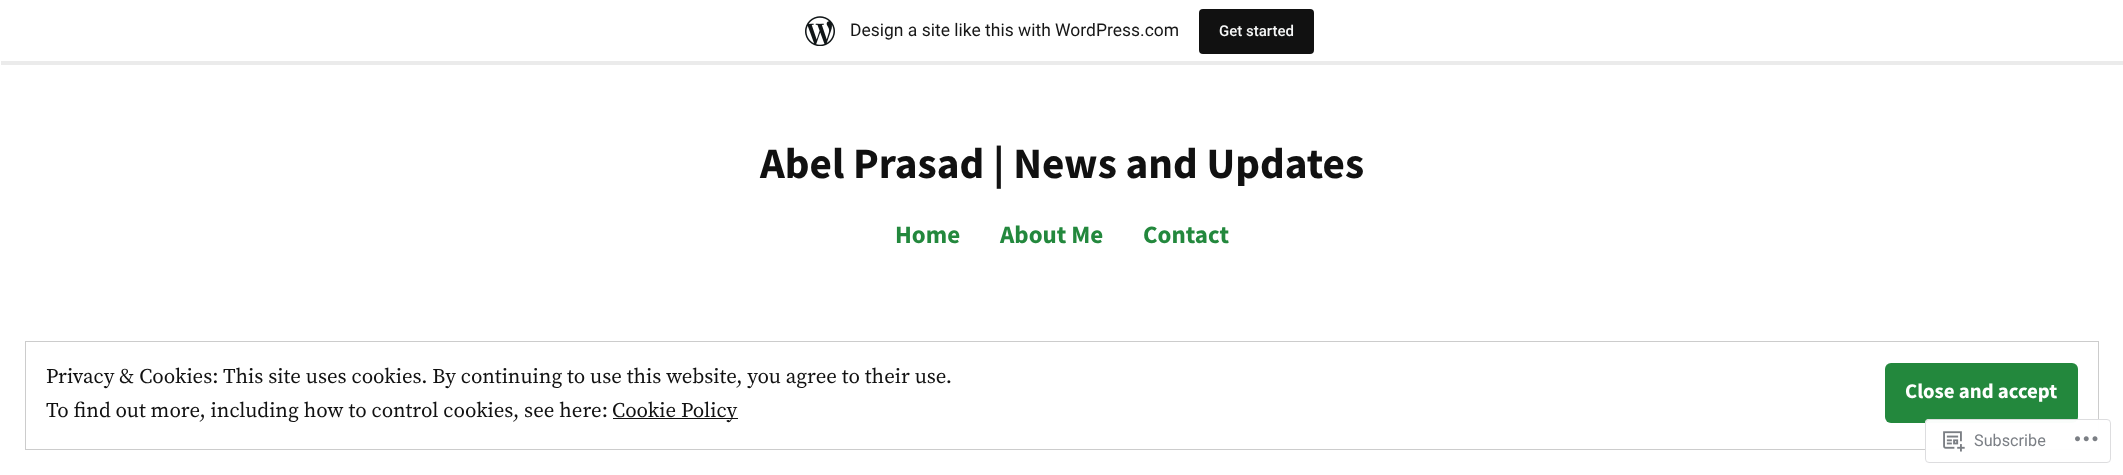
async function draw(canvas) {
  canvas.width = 2123
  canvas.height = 475
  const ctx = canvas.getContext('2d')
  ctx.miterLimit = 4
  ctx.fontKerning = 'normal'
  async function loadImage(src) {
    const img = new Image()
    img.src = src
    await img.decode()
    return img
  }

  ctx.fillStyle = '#fff'
  ctx.fillRect(0, 0, 2123, 475)
  ctx.fillStyle = '#00000014'
  ctx.beginPath()
  ctx.moveTo(1, 61)
  ctx.lineTo(1, 65)
  ctx.lineTo(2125, 65)
  ctx.lineTo(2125, 4)
  ctx.lineTo(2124, 4)
  ctx.lineTo(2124, 61)
  ctx.closePath()
  ctx.fill()
  ctx.drawImage(await loadImage('image0.png'), 805, 16, 30, 30)
  ctx.font = '17.5px Roboto'
  ctx.fillStyle = '#171717'
  ctx.fillText('Design a site like this with WordPress.com', 850, 36)
  ctx.fillStyle = '#111'
  ctx.beginPath()
  ctx.roundRect(1199, 9, 115, 45, 4)
  ctx.fill()
  ctx.font = '500 15px Roboto'
  ctx.fillStyle = '#f6f7f7'
  ctx.fillText('Get started', 1219, 36)
  ctx.font = 'bold 43.25px Source Sans Pro'
  ctx.fillStyle = '#111'
  ctx.fillText('Abel Prasad | News and Updates', 760, 178)
  ctx.font = 'bold 25px Source Sans Pro'
  ctx.fillStyle = '#23883d'
  ctx.fillText('Home', 895, 243)
  ctx.fillText('About Me', 1000, 243)
  ctx.fillText('Contact', 1143, 243)
  ctx.strokeStyle = '#ccc'
  ctx.strokeRect(25.5, 341.5, 2073, 108)
  ctx.font = '20.85px Source Serif Pro'
  ctx.fillStyle = '#111'
  ctx.fillText('Privacy & Cookies: This site uses cookies. By continuing to use this website, you agree to their use.', 46, 383)
  ctx.fillStyle = '#23883d'
  ctx.beginPath()
  ctx.roundRect(1885, 363, 193, 60, 6)
  ctx.fill()
  ctx.font = 'bold 20.85px Source Sans Pro'
  ctx.fillStyle = '#fff'
  ctx.fillText('Close and accept', 1905, 398)
  ctx.font = '20.85px Source Serif Pro'
  ctx.fillStyle = '#111'
  ctx.fillText('To find out more, including how to control cookies, see here:', 46, 417)
  ctx.fillRect(613, 418, 125, 1)
  ctx.fillText('Cookie Policy', 612, 417)
  ctx.fillStyle = '#fffffffa'
  ctx.beginPath()
  ctx.roundRect(1925, 419, 186, 44, 4)
  ctx.fill()
  ctx.beginPath()
  ctx.roundRect(1925.5, 419.5, 185, 43, 3.5)
  ctx.strokeStyle = '#dcdcdefa'
  ctx.stroke()
  ctx.drawImage(await loadImage('image1.png'), 1943, 431, 22, 21)
  ctx.font = '16.25px Roboto'
  ctx.fillStyle = '#7b7f85'
  ctx.fillText('Subscribe', 1974, 446)
  ctx.drawImage(await loadImage('image2.png'), 2075, 436, 23, 6)
}

draw(document.querySelector('canvas'))
